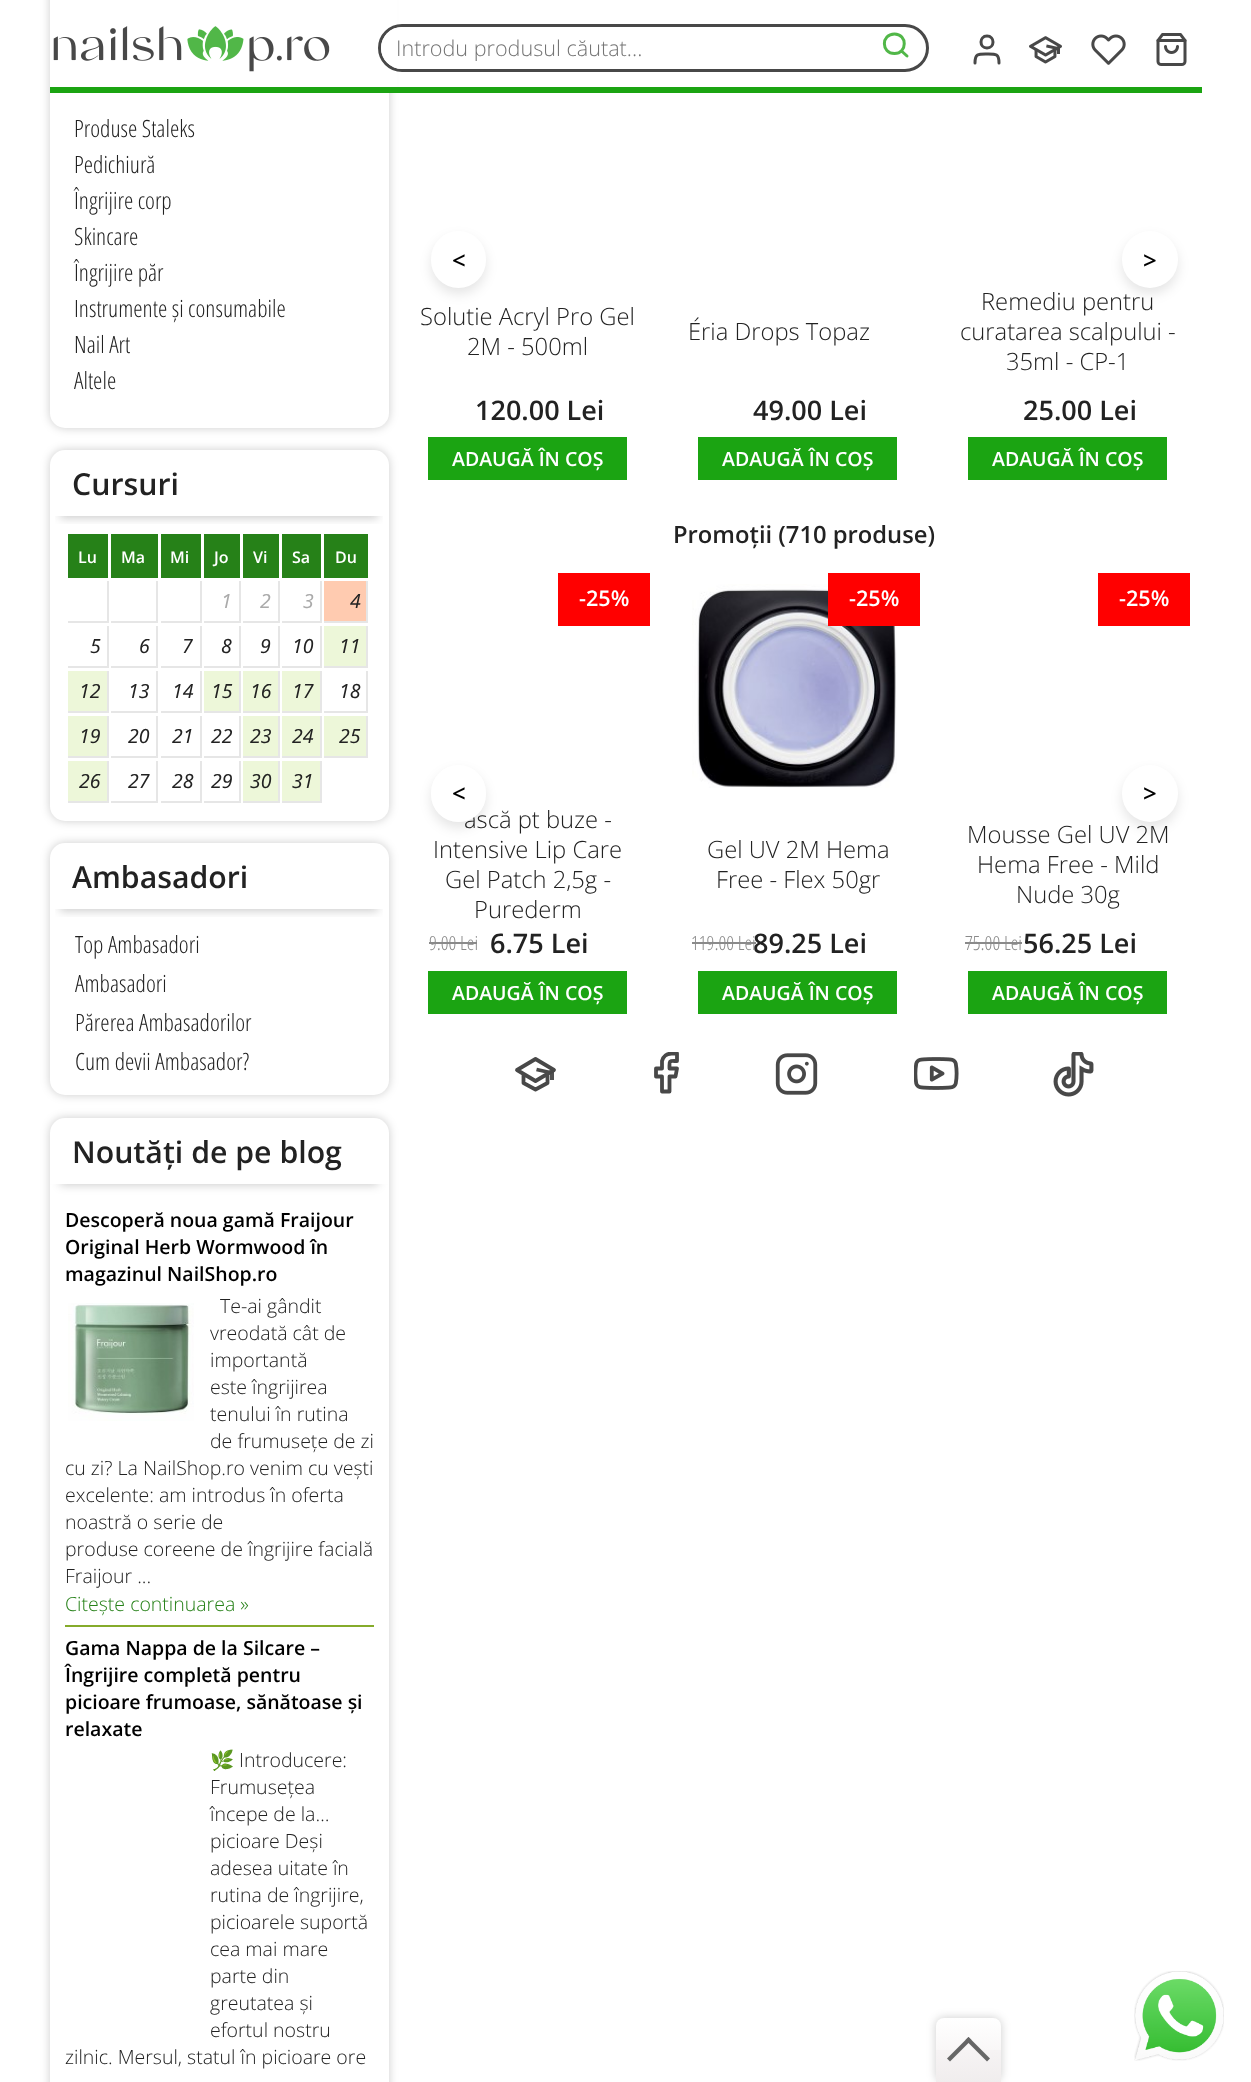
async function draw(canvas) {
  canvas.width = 1251
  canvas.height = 2082
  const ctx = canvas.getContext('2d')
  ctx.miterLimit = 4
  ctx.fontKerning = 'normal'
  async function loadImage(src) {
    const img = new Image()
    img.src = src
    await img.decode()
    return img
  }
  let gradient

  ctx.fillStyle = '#fff'
  ctx.fillRect(0, 0, 1251, 2082)
  ctx.fillStyle = '#00000033'
  ctx.filter = 'blur(5px)'
  ctx.beginPath()
  ctx.roundRect(50, -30, 339, 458, 15)
  ctx.fill()
  ctx.filter = 'none'
  ctx.fillStyle = '#fff'
  ctx.fillRect(389, 0, 8, 87)
  ctx.beginPath()
  ctx.roundRect(50, -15, 339, 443, 15)
  ctx.fill()
  ctx.fillStyle = '#1ba412'
  ctx.fillRect(50, 87, 1152, 6)
  ctx.drawImage(await loadImage('image0.png'), 53, 26, 277, 46)
  ctx.beginPath()
  ctx.roundRect(379.5, 25.5, 548, 45, 22.5)
  ctx.strokeStyle = '#484848'
  ctx.lineWidth = 3
  ctx.stroke()
  ctx.fillStyle = '#fff'
  ctx.beginPath()
  ctx.roundRect(381, 27, 491, 42, [21, 0, 0, 21])
  ctx.fill()
  ctx.font = '300 21.6px Open Sans'
  ctx.fillStyle = '#757575'
  ctx.fillText('Introdu produsul căutat...', 396, 56)
  ctx.beginPath()
  ctx.moveTo(894.5, 53.5)
  ctx.bezierCurveTo(907.5, 53.5, 907.5, 34, 894.5, 34)
  ctx.bezierCurveTo(881, 34, 881, 53.5, 894.5, 53.5)
  ctx.closePath()
  ctx.moveTo(907, 56)
  ctx.lineTo(901.5, 51)
  ctx.strokeStyle = '#51b748'
  ctx.lineCap = 'round'
  ctx.lineJoin = 'round'
  ctx.stroke()
  ctx.beginPath()
  ctx.moveTo(999, 63)
  ctx.bezierCurveTo(999, 53.5, 995.5, 54, 987, 54)
  ctx.bezierCurveTo(978.5, 54, 975, 53.5, 975, 63)
  ctx.moveTo(987, 48)
  ctx.bezierCurveTo(995, 48, 995, 36, 987, 36)
  ctx.bezierCurveTo(979, 36, 979, 48, 987, 48)
  ctx.closePath()
  ctx.strokeStyle = '#484848'
  ctx.stroke()
  ctx.drawImage(await loadImage('image1.png'), 1029, 36, 33, 28)
  ctx.drawImage(await loadImage('image2.png'), 1091, 34, 35, 31)
  ctx.drawImage(await loadImage('image3.png'), 1156, 33, 31, 33)
  ctx.font = '300 23.75px Open Sans Condensed'
  ctx.fillStyle = '#222'
  ctx.fillText('Produse Staleks', 74, 137)
  ctx.fillText('Pedichiură', 74, 173)
  ctx.fillText('Îngrijire corp', 74, 209)
  ctx.fillText('Skincare', 74, 245)
  ctx.fillText('Îngrijire păr', 74, 281)
  ctx.fillText('Instrumente și consumabile', 74, 317)
  ctx.fillText('Nail Art', 74, 353)
  ctx.fillText('Altele', 74, 389)
  ctx.fillStyle = '#00000033'
  ctx.filter = 'blur(5px)'
  ctx.beginPath()
  ctx.roundRect(50, 450, 339, 371, 15)
  ctx.fill()
  ctx.filter = 'none'
  ctx.fillStyle = '#fff'
  ctx.beginPath()
  ctx.roundRect(50, 450, 339, 371, 15)
  ctx.fill()
  ctx.save()
  ctx.beginPath()
  ctx.rect(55, 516, 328, 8)
  ctx.clip()
  ctx.fillStyle = '#00000033'
  ctx.filter = 'blur(5px)'
  ctx.beginPath()
  ctx.rect(60, 473, 318, 45)
  ctx.fill()
  ctx.filter = 'none'
  ctx.restore()
  ctx.font = '600 30.25px Open Sans'
  ctx.fillStyle = '#222'
  ctx.fillText('Cursuri', 72, 495)
  ctx.fillStyle = '#268118'
  ctx.fillRect(68, 534, 40, 44)
  ctx.font = '600 16px Open Sans'
  ctx.fillStyle = '#fff'
  ctx.fillText('Lu', 78, 563)
  ctx.fillStyle = '#268118'
  ctx.fillRect(111, 534, 47, 44)
  ctx.fillStyle = '#fff'
  ctx.fillText('Ma', 121, 563)
  ctx.fillStyle = '#268118'
  ctx.fillRect(161, 534, 40, 44)
  ctx.fillStyle = '#fff'
  ctx.fillText('Mi', 170, 563)
  ctx.fillStyle = '#268118'
  ctx.fillRect(204, 534, 36, 44)
  ctx.fillStyle = '#fff'
  ctx.fillText('Jo', 214, 563)
  ctx.fillStyle = '#268118'
  ctx.fillRect(243, 534, 36, 44)
  ctx.fillStyle = '#fff'
  ctx.fillText('Vi', 253, 563)
  ctx.fillStyle = '#268118'
  ctx.fillRect(282, 534, 39, 44)
  ctx.fillStyle = '#fff'
  ctx.fillText('Sa', 292, 563)
  ctx.fillStyle = '#268118'
  ctx.fillRect(324, 534, 44, 44)
  ctx.fillStyle = '#fff'
  ctx.fillText('Du', 335, 563)
  ctx.fillStyle = '#e6e6e6'
  ctx.fillRect(107, 581, 2, 42)
  ctx.fillRect(68, 621, 40, 2)
  ctx.fillRect(156, 581, 2, 42)
  ctx.fillRect(111, 621, 47, 2)
  ctx.fillRect(200, 581, 2, 42)
  ctx.fillRect(161, 621, 40, 2)
  ctx.fillRect(239, 581, 2, 42)
  ctx.fillRect(204, 621, 36, 2)
  ctx.font = 'italic 19.5px Noto Sans'
  ctx.fillStyle = '#aaa'
  ctx.fillText('1', 221, 608)
  ctx.fillStyle = '#e6e6e6'
  ctx.fillRect(278, 581, 2, 42)
  ctx.fillRect(243, 621, 36, 2)
  ctx.fillStyle = '#aaa'
  ctx.fillText('2', 260, 608)
  ctx.fillStyle = '#e6e6e6'
  ctx.fillRect(320, 581, 2, 42)
  ctx.fillRect(282, 621, 39, 2)
  ctx.fillStyle = '#aaa'
  ctx.fillText('3', 303, 608)
  ctx.fillStyle = '#ffcbb0'
  ctx.fillRect(324, 581, 42, 40)
  ctx.fillStyle = '#e6e6e6'
  ctx.fillRect(366, 581, 2, 42)
  ctx.fillRect(324, 621, 44, 2)
  ctx.fillStyle = '#222'
  ctx.fillText('4', 350, 608)
  ctx.fillStyle = '#e6e6e6'
  ctx.fillRect(107, 626, 2, 42)
  ctx.fillRect(68, 666, 40, 2)
  ctx.fillStyle = '#222'
  ctx.fillText('5', 90, 653)
  ctx.fillStyle = '#e6e6e6'
  ctx.fillRect(156, 626, 2, 42)
  ctx.fillRect(111, 666, 47, 2)
  ctx.fillStyle = '#222'
  ctx.fillText('6', 139, 653)
  ctx.fillStyle = '#e6e6e6'
  ctx.fillRect(200, 626, 2, 42)
  ctx.fillRect(161, 666, 40, 2)
  ctx.fillStyle = '#222'
  ctx.fillText('7', 182, 653)
  ctx.fillStyle = '#e6e6e6'
  ctx.fillRect(239, 626, 2, 42)
  ctx.fillRect(204, 666, 36, 2)
  ctx.fillStyle = '#222'
  ctx.fillText('8', 221, 653)
  ctx.fillStyle = '#e6e6e6'
  ctx.fillRect(278, 626, 2, 42)
  ctx.fillRect(243, 666, 36, 2)
  ctx.fillStyle = '#222'
  ctx.fillText('9', 260, 653)
  ctx.fillStyle = '#e6e6e6'
  ctx.fillRect(320, 626, 2, 42)
  ctx.fillRect(282, 666, 39, 2)
  ctx.fillStyle = '#222'
  ctx.fillText('10', 292, 653)
  ctx.fillStyle = '#edf7d9'
  ctx.fillRect(324, 626, 42, 40)
  ctx.fillStyle = '#e6e6e6'
  ctx.fillRect(366, 626, 2, 42)
  ctx.fillRect(324, 666, 44, 2)
  ctx.fillStyle = '#222'
  ctx.fillText('11', 339, 653)
  ctx.fillStyle = '#edf7d9'
  ctx.fillRect(68, 671, 39, 40)
  ctx.fillStyle = '#e6e6e6'
  ctx.fillRect(107, 671, 2, 42)
  ctx.fillRect(68, 711, 40, 2)
  ctx.fillStyle = '#222'
  ctx.fillText('12', 79, 698)
  ctx.fillStyle = '#e6e6e6'
  ctx.fillRect(156, 671, 2, 42)
  ctx.fillRect(111, 711, 47, 2)
  ctx.fillStyle = '#222'
  ctx.fillText('13', 128, 698)
  ctx.fillStyle = '#e6e6e6'
  ctx.fillRect(200, 671, 2, 42)
  ctx.fillRect(161, 711, 40, 2)
  ctx.fillStyle = '#222'
  ctx.fillText('14', 172, 698)
  ctx.fillStyle = '#edf7d9'
  ctx.fillRect(204, 671, 35, 40)
  ctx.fillStyle = '#e6e6e6'
  ctx.fillRect(239, 671, 2, 42)
  ctx.fillRect(204, 711, 36, 2)
  ctx.fillStyle = '#222'
  ctx.fillText('15', 211, 698)
  ctx.fillStyle = '#edf7d9'
  ctx.fillRect(243, 671, 35, 40)
  ctx.fillStyle = '#e6e6e6'
  ctx.fillRect(278, 671, 2, 42)
  ctx.fillRect(243, 711, 36, 2)
  ctx.fillStyle = '#222'
  ctx.fillText('16', 250, 698)
  ctx.fillStyle = '#edf7d9'
  ctx.fillRect(282, 671, 38, 40)
  ctx.fillStyle = '#e6e6e6'
  ctx.fillRect(320, 671, 2, 42)
  ctx.fillRect(282, 711, 39, 2)
  ctx.fillStyle = '#222'
  ctx.fillText('17', 292, 698)
  ctx.fillStyle = '#e6e6e6'
  ctx.fillRect(366, 671, 2, 42)
  ctx.fillRect(324, 711, 44, 2)
  ctx.fillStyle = '#222'
  ctx.fillText('18', 339, 698)
  ctx.fillStyle = '#edf7d9'
  ctx.fillRect(68, 716, 39, 40)
  ctx.fillStyle = '#e6e6e6'
  ctx.fillRect(107, 716, 2, 42)
  ctx.fillRect(68, 756, 40, 2)
  ctx.fillStyle = '#222'
  ctx.fillText('19', 79, 743)
  ctx.fillStyle = '#e6e6e6'
  ctx.fillRect(156, 716, 2, 42)
  ctx.fillRect(111, 756, 47, 2)
  ctx.fillStyle = '#222'
  ctx.fillText('20', 128, 743)
  ctx.fillStyle = '#e6e6e6'
  ctx.fillRect(200, 716, 2, 42)
  ctx.fillRect(161, 756, 40, 2)
  ctx.fillStyle = '#222'
  ctx.fillText('21', 172, 743)
  ctx.fillStyle = '#e6e6e6'
  ctx.fillRect(239, 716, 2, 42)
  ctx.fillRect(204, 756, 36, 2)
  ctx.fillStyle = '#222'
  ctx.fillText('22', 211, 743)
  ctx.fillStyle = '#edf7d9'
  ctx.fillRect(243, 716, 35, 40)
  ctx.fillStyle = '#e6e6e6'
  ctx.fillRect(278, 716, 2, 42)
  ctx.fillRect(243, 756, 36, 2)
  ctx.fillStyle = '#222'
  ctx.fillText('23', 250, 743)
  ctx.fillStyle = '#edf7d9'
  ctx.fillRect(282, 716, 38, 40)
  ctx.fillStyle = '#e6e6e6'
  ctx.fillRect(320, 716, 2, 42)
  ctx.fillRect(282, 756, 39, 2)
  ctx.fillStyle = '#222'
  ctx.fillText('24', 292, 743)
  ctx.fillStyle = '#edf7d9'
  ctx.fillRect(324, 716, 42, 40)
  ctx.fillStyle = '#e6e6e6'
  ctx.fillRect(366, 716, 2, 42)
  ctx.fillRect(324, 756, 44, 2)
  ctx.fillStyle = '#222'
  ctx.fillText('25', 339, 743)
  ctx.fillStyle = '#edf7d9'
  ctx.fillRect(68, 761, 39, 40)
  ctx.fillStyle = '#e6e6e6'
  ctx.fillRect(107, 761, 2, 42)
  ctx.fillRect(68, 801, 40, 2)
  ctx.fillStyle = '#222'
  ctx.fillText('26', 79, 788)
  ctx.fillStyle = '#e6e6e6'
  ctx.fillRect(156, 761, 2, 42)
  ctx.fillRect(111, 801, 47, 2)
  ctx.fillStyle = '#222'
  ctx.fillText('27', 128, 788)
  ctx.fillStyle = '#e6e6e6'
  ctx.fillRect(200, 761, 2, 42)
  ctx.fillRect(161, 801, 40, 2)
  ctx.fillStyle = '#222'
  ctx.fillText('28', 172, 788)
  ctx.fillStyle = '#e6e6e6'
  ctx.fillRect(239, 761, 2, 42)
  ctx.fillRect(204, 801, 36, 2)
  ctx.fillStyle = '#222'
  ctx.fillText('29', 211, 788)
  ctx.fillStyle = '#edf7d9'
  ctx.fillRect(243, 761, 35, 40)
  ctx.fillStyle = '#e6e6e6'
  ctx.fillRect(278, 761, 2, 42)
  ctx.fillRect(243, 801, 36, 2)
  ctx.fillStyle = '#222'
  ctx.fillText('30', 250, 788)
  ctx.fillStyle = '#edf7d9'
  ctx.fillRect(282, 761, 38, 40)
  ctx.fillStyle = '#e6e6e6'
  ctx.fillRect(320, 761, 2, 42)
  ctx.fillRect(282, 801, 39, 2)
  ctx.fillStyle = '#222'
  ctx.fillText('31', 292, 788)
  ctx.fillStyle = '#00000033'
  ctx.filter = 'blur(5px)'
  ctx.beginPath()
  ctx.roundRect(50, 843, 339, 252, 15)
  ctx.fill()
  ctx.filter = 'none'
  ctx.fillStyle = '#fff'
  ctx.beginPath()
  ctx.roundRect(50, 843, 339, 252, 15)
  ctx.fill()
  ctx.save()
  ctx.beginPath()
  ctx.rect(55, 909, 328, 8)
  ctx.clip()
  ctx.fillStyle = '#00000033'
  ctx.filter = 'blur(5px)'
  ctx.beginPath()
  ctx.rect(60, 866, 318, 45)
  ctx.fill()
  ctx.filter = 'none'
  ctx.restore()
  ctx.font = '600 30.25px Open Sans'
  ctx.fillStyle = '#222'
  ctx.fillText('Ambasadori', 72, 888)
  ctx.font = '300 23.75px Open Sans Condensed'
  ctx.fillText('Top Ambasadori', 75, 953)
  ctx.fillText('Ambasadori', 75, 992)
  ctx.fillText('Părerea Ambasadorilor', 75, 1031)
  ctx.fillText('Cum devii Ambasador?', 75, 1070)
  ctx.fillStyle = '#00000033'
  ctx.filter = 'blur(5px)'
  ctx.beginPath()
  ctx.roundRect(50, 1118, 339, 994, 15)
  ctx.fill()
  ctx.filter = 'none'
  ctx.fillStyle = '#fff'
  ctx.beginPath()
  ctx.roundRect(50, 1118, 339, 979, 15)
  ctx.fill()
  ctx.save()
  ctx.beginPath()
  ctx.moveTo(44, 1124)
  ctx.lineTo(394, 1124)
  ctx.lineTo(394, 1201)
  ctx.lineTo(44, 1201)
  ctx.closePath()
  ctx.moveTo(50, 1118)
  ctx.lineTo(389, 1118)
  ctx.lineTo(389, 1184)
  ctx.lineTo(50, 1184)
  ctx.closePath()
  ctx.clip('evenodd')
  ctx.fillStyle = '#00000033'
  ctx.filter = 'blur(5px)'
  ctx.beginPath()
  ctx.rect(60, 1140, 318, 45)
  ctx.fill()
  ctx.filter = 'none'
  ctx.restore()
  ctx.font = '600 30.25px Open Sans'
  ctx.fillStyle = '#222'
  ctx.fillText('Noutăți de pe blog', 72, 1163)
  ctx.fillStyle = '#85ab2b'
  ctx.fillRect(65, 1625, 309, 2)
  ctx.font = '600 19.5px Open Sans'
  ctx.fillStyle = '#000'
  ctx.fillText('Descoperă noua gamă Fraijour', 65, 1227)
  ctx.fillText('Original Herb Wormwood în', 65, 1254)
  ctx.fillText('magazinul NailShop.ro', 65, 1281)
  ctx.font = '300 19.5px Open Sans'
  ctx.fillStyle = '#222'
  ctx.fillText('Te-ai gândit', 220, 1313)
  ctx.fillText('vreodată cât de', 210, 1340)
  ctx.fillText('importantă', 210, 1367)
  ctx.fillText('este îngrijirea', 210, 1394)
  ctx.fillText('tenului în rutina', 210, 1421)
  ctx.fillText('de frumusețe de zi', 210, 1448)
  ctx.fillText('cu zi? La NailShop.ro venim cu vești', 65, 1475)
  ctx.fillText('excelente: am introdus în oferta', 65, 1502)
  ctx.fillText('noastră o serie de', 65, 1529)
  ctx.fillText('produse coreene de îngrijire facială', 65, 1556)
  ctx.fillText('Fraijour ...', 65, 1583)
  ctx.drawImage(await loadImage('image4.png'), 68, 1303, 126, 118)
  ctx.fillStyle = '#268118'
  ctx.fillText('Citește continuarea »', 65, 1611)
  ctx.font = '600 19.5px Open Sans'
  ctx.fillStyle = '#000'
  ctx.fillText('Gama Nappa de la Silcare –', 65, 1655)
  ctx.fillText('Îngrijire completă pentru', 65, 1682)
  ctx.fillText('picioare frumoase, sănătoase și', 65, 1709)
  ctx.fillText('relaxate', 65, 1736)
  ctx.font = '19.5px Noto Color Emoji'
  ctx.fillStyle = '#222'
  ctx.fillText('🌿', 210, 1767)
  ctx.font = '300 19.5px Open Sans'
  ctx.fillText('Introducere:', 239, 1767)
  ctx.fillText('Frumusețea', 210, 1794)
  ctx.fillText('începe de la…', 210, 1821)
  ctx.fillText('picioare Deși', 210, 1848)
  ctx.fillText('adesea uitate în', 210, 1875)
  ctx.fillText('rutina de îngrijire,', 210, 1902)
  ctx.fillText('picioarele suportă', 210, 1929)
  ctx.fillText('cea mai mare', 210, 1956)
  ctx.fillText('parte din', 210, 1983)
  ctx.fillText('greutatea și', 210, 2010)
  ctx.fillText('efortul nostru', 210, 2037)
  ctx.fillText('zilnic. Mersul, statul în picioare ore', 65, 2064)
  ctx.fillStyle = '#0000001a'
  ctx.filter = 'blur(6px)'
  ctx.beginPath()
  ctx.roundRect(431, 237, 55, 57, 27.5)
  ctx.fill()
  ctx.filter = 'none'
  ctx.fillStyle = '#fff'
  ctx.beginPath()
  ctx.roundRect(431, 231, 55, 57, 27.5)
  ctx.fill()
  ctx.font = '600 24px Open Sans'
  ctx.fillStyle = '#000'
  ctx.fillText('<', 452, 269)
  ctx.fillStyle = '#0000001a'
  ctx.filter = 'blur(6px)'
  ctx.beginPath()
  ctx.roundRect(1122, 237, 56, 57, 28)
  ctx.fill()
  ctx.filter = 'none'
  ctx.fillStyle = '#fff'
  ctx.beginPath()
  ctx.roundRect(1122, 231, 56, 57, 28)
  ctx.fill()
  ctx.fillStyle = '#000'
  ctx.fillText('>', 1143, 269)
  ctx.font = '300 23.75px Open Sans'
  ctx.fillStyle = '#222'
  ctx.fillText('Solutie Acryl Pro Gel', 420, 325)
  ctx.fillText('2M - 500ml', 467, 355)
  ctx.font = '600 27px Open Sans'
  ctx.fillText('120.00 Lei', 475, 420)
  ctx.fillStyle = '#1ba412'
  ctx.fillRect(428, 437, 199, 43)
  ctx.font = '600 19.5px Open Sans'
  ctx.fillStyle = '#fff'
  ctx.fillText('ADAUGĂ ÎN COȘ', 452, 466)
  ctx.font = '300 23.75px Open Sans'
  ctx.fillStyle = '#222'
  ctx.fillText('Éria Drops Topaz', 688, 340)
  ctx.font = '600 27px Open Sans'
  ctx.fillText('49.00 Lei', 753, 420)
  ctx.fillStyle = '#1ba412'
  ctx.fillRect(698, 437, 199, 43)
  ctx.font = '600 19.5px Open Sans'
  ctx.fillStyle = '#fff'
  ctx.fillText('ADAUGĂ ÎN COȘ', 722, 466)
  ctx.font = '300 23.75px Open Sans'
  ctx.fillStyle = '#222'
  ctx.fillText('Remediu pentru', 981, 310)
  ctx.fillText('curatarea scalpului -', 960, 340)
  ctx.fillText('35ml - CP-1', 1006, 370)
  ctx.font = '600 27px Open Sans'
  ctx.fillText('25.00 Lei', 1023, 420)
  ctx.fillStyle = '#1ba412'
  ctx.fillRect(968, 437, 199, 43)
  ctx.font = '600 19.5px Open Sans'
  ctx.fillStyle = '#fff'
  ctx.fillText('ADAUGĂ ÎN COȘ', 992, 466)
  ctx.font = '600 23.75px Open Sans'
  ctx.fillStyle = '#222'
  ctx.fillText('Promoții (710 produse)', 673, 543)
  ctx.fillStyle = '#f00'
  ctx.fillRect(558, 573, 92, 53)
  ctx.font = '600 21.6px Open Sans'
  ctx.fillStyle = '#fff'
  ctx.fillText('-25%', 579, 606)
  ctx.font = '300 23.75px Open Sans'
  ctx.fillStyle = '#222'
  ctx.fillText('ască pt buze -', 464, 828)
  ctx.fillText('Intensive Lip Care', 433, 858)
  ctx.fillText('Gel Patch 2,5g -', 445, 888)
  ctx.fillText('Purederm', 474, 918)
  ctx.font = '300 19.5px Open Sans Condensed'
  ctx.fillStyle = '#8a8a8a'
  ctx.fillText('9.00 Lei', 429, 950)
  ctx.fillRect(429, 942, 48, 2)
  ctx.font = '600 27px Open Sans'
  ctx.fillStyle = '#222'
  ctx.fillText('6.75 Lei', 490, 953)
  ctx.fillStyle = '#1ba412'
  ctx.fillRect(428, 971, 199, 43)
  ctx.font = '600 19.5px Open Sans'
  ctx.fillStyle = '#fff'
  ctx.fillText('ADAUGĂ ÎN COȘ', 452, 1000)
  ctx.drawImage(await loadImage('image5.png'), 692, 584, 205, 204)
  ctx.fillStyle = '#f00'
  ctx.fillRect(828, 573, 92, 53)
  ctx.font = '600 21.6px Open Sans'
  ctx.fillStyle = '#fff'
  ctx.fillText('-25%', 849, 606)
  ctx.font = '300 23.75px Open Sans'
  ctx.fillStyle = '#222'
  ctx.fillText('Gel UV 2M Hema', 707, 858)
  ctx.fillText('Free - Flex 50gr', 716, 888)
  ctx.font = '600 27px Open Sans'
  ctx.fillText('89.25 Lei', 753, 953)
  ctx.font = '300 19.5px Open Sans Condensed'
  ctx.fillStyle = '#8a8a8a'
  ctx.fillText('119.00 Lei', 691, 950)
  ctx.fillRect(692, 942, 64, 2)
  ctx.fillStyle = '#1ba412'
  ctx.fillRect(698, 971, 199, 43)
  ctx.font = '600 19.5px Open Sans'
  ctx.fillStyle = '#fff'
  ctx.fillText('ADAUGĂ ÎN COȘ', 722, 1000)
  ctx.fillStyle = '#f00'
  ctx.fillRect(1098, 573, 92, 53)
  ctx.font = '600 21.6px Open Sans'
  ctx.fillStyle = '#fff'
  ctx.fillText('-25%', 1119, 606)
  ctx.font = '300 23.75px Open Sans'
  ctx.fillStyle = '#222'
  ctx.fillText('Mousse Gel UV 2M', 967, 843)
  ctx.fillText('Hema Free - Mild', 977, 873)
  ctx.fillText('Nude 30g', 1016, 903)
  ctx.font = '300 19.5px Open Sans Condensed'
  ctx.fillStyle = '#8a8a8a'
  ctx.fillText('75.00 Lei', 965, 950)
  ctx.fillRect(965, 942, 57, 2)
  ctx.font = '600 27px Open Sans'
  ctx.fillStyle = '#222'
  ctx.fillText('56.25 Lei', 1023, 953)
  ctx.fillStyle = '#1ba412'
  ctx.fillRect(968, 971, 199, 43)
  ctx.font = '600 19.5px Open Sans'
  ctx.fillStyle = '#fff'
  ctx.fillText('ADAUGĂ ÎN COȘ', 992, 1000)
  ctx.fillStyle = '#0000001a'
  ctx.filter = 'blur(6px)'
  ctx.beginPath()
  ctx.roundRect(431, 771, 55, 57, 27.5)
  ctx.fill()
  ctx.filter = 'none'
  ctx.fillStyle = '#fff'
  ctx.beginPath()
  ctx.roundRect(431, 765, 55, 57, 27.5)
  ctx.fill()
  ctx.beginPath()
  ctx.roundRect(432.5, 766.5, 52, 54, 26)
  ctx.strokeStyle = '#ffffff80'
  ctx.lineJoin = 'miter'
  ctx.stroke()
  ctx.font = '600 24px Open Sans'
  ctx.fillStyle = '#000'
  ctx.fillText('<', 452, 802)
  ctx.fillStyle = '#0000001a'
  ctx.filter = 'blur(6px)'
  ctx.beginPath()
  ctx.roundRect(1122, 771, 56, 57, 28)
  ctx.fill()
  ctx.filter = 'none'
  ctx.fillStyle = '#fff'
  ctx.beginPath()
  ctx.roundRect(1122, 765, 56, 57, 28)
  ctx.fill()
  ctx.fillStyle = '#000'
  ctx.fillText('>', 1143, 802)
  ctx.beginPath()
  ctx.moveTo(535.5, 1059)
  ctx.lineTo(554, 1070)
  ctx.lineTo(535.5, 1081)
  ctx.lineTo(517, 1070)
  ctx.closePath()
  ctx.moveTo(547.5, 1073)
  ctx.lineTo(547.5, 1083)
  ctx.lineTo(535.5, 1089.5)
  ctx.lineTo(523.5, 1083)
  ctx.lineTo(523.5, 1073)
  ctx.strokeStyle = '#484848'
  ctx.lineWidth = 3.8
  ctx.lineCap = 'butt'
  ctx.lineJoin = 'round'
  ctx.stroke()
  ctx.beginPath()
  ctx.moveTo(550, 1072.5)
  ctx.lineTo(536.5, 1069.5)
  ctx.lineJoin = 'miter'
  ctx.stroke()
  ctx.fillStyle = '#484848f2'
  ctx.fillRect(550, 1072, 4, 8)
  ctx.save()
  ctx.beginPath()
  ctx.rect(653, 1052, 28, 42)
  ctx.clip()
  ctx.beginPath()
  ctx.moveTo(671.5, 1053.5)
  ctx.lineTo(677, 1053.5)
  ctx.lineTo(677, 1061)
  ctx.bezierCurveTo(668.5, 1061, 669.5, 1060, 669.5, 1068.5)
  ctx.lineTo(677, 1068.5)
  ctx.lineTo(675.5, 1076.5)
  ctx.lineTo(669.5, 1076.5)
  ctx.lineTo(669.5, 1091.5)
  ctx.lineTo(662, 1091.5)
  ctx.lineTo(662, 1076.5)
  ctx.lineTo(656, 1076.5)
  ctx.lineTo(656, 1068.5)
  ctx.lineTo(662, 1068.5)
  ctx.lineTo(662, 1061)
  ctx.bezierCurveTo(663, 1056.5, 667, 1053.5, 671.5, 1053.5)
  ctx.closePath()
  ctx.lineCap = 'round'
  ctx.lineJoin = 'round'
  ctx.stroke()
  ctx.restore()
  ctx.drawImage(await loadImage('image6.png'), 775, 1053, 43, 42)
  ctx.drawImage(await loadImage('image7.png'), 914, 1057, 45, 33)
  ctx.drawImage(await loadImage('image8.png'), 1053, 1052, 41, 45)
  ctx.drawImage(await loadImage('image9.png'), 1134, 1971, 90, 90)
  ctx.fillStyle = '#00000033'
  ctx.filter = 'blur(5px)'
  ctx.beginPath()
  ctx.roundRect(936, 2018, 65, 64, 8)
  ctx.fill()
  ctx.filter = 'none'
  gradient = ctx.createLinearGradient(968, 2018, 968, 2082)
  gradient.addColorStop(0, '#fff')
  gradient.addColorStop(0.5, '#f9f7f7')
  gradient.addColorStop(0.5, '#f6f3f4')
  gradient.addColorStop(1, '#f0eded')
  ctx.fillStyle = gradient
  ctx.beginPath()
  ctx.roundRect(936, 2018, 65, 64, [8, 8, 0, 0])
  ctx.fill()
  ctx.fillStyle = '#666'
  ctx.beginPath()
  ctx.moveTo(947, 2058.5)
  ctx.lineTo(968.5, 2037)
  ctx.lineTo(971.5, 2040)
  ctx.lineTo(950, 2061.5)
  ctx.closePath()
  ctx.fill()
  ctx.beginPath()
  ctx.moveTo(965.5, 2040)
  ctx.lineTo(968.5, 2037)
  ctx.lineTo(990, 2058.5)
  ctx.lineTo(987, 2061.5)
  ctx.closePath()
  ctx.fill()
}

draw(document.querySelector('canvas'))
